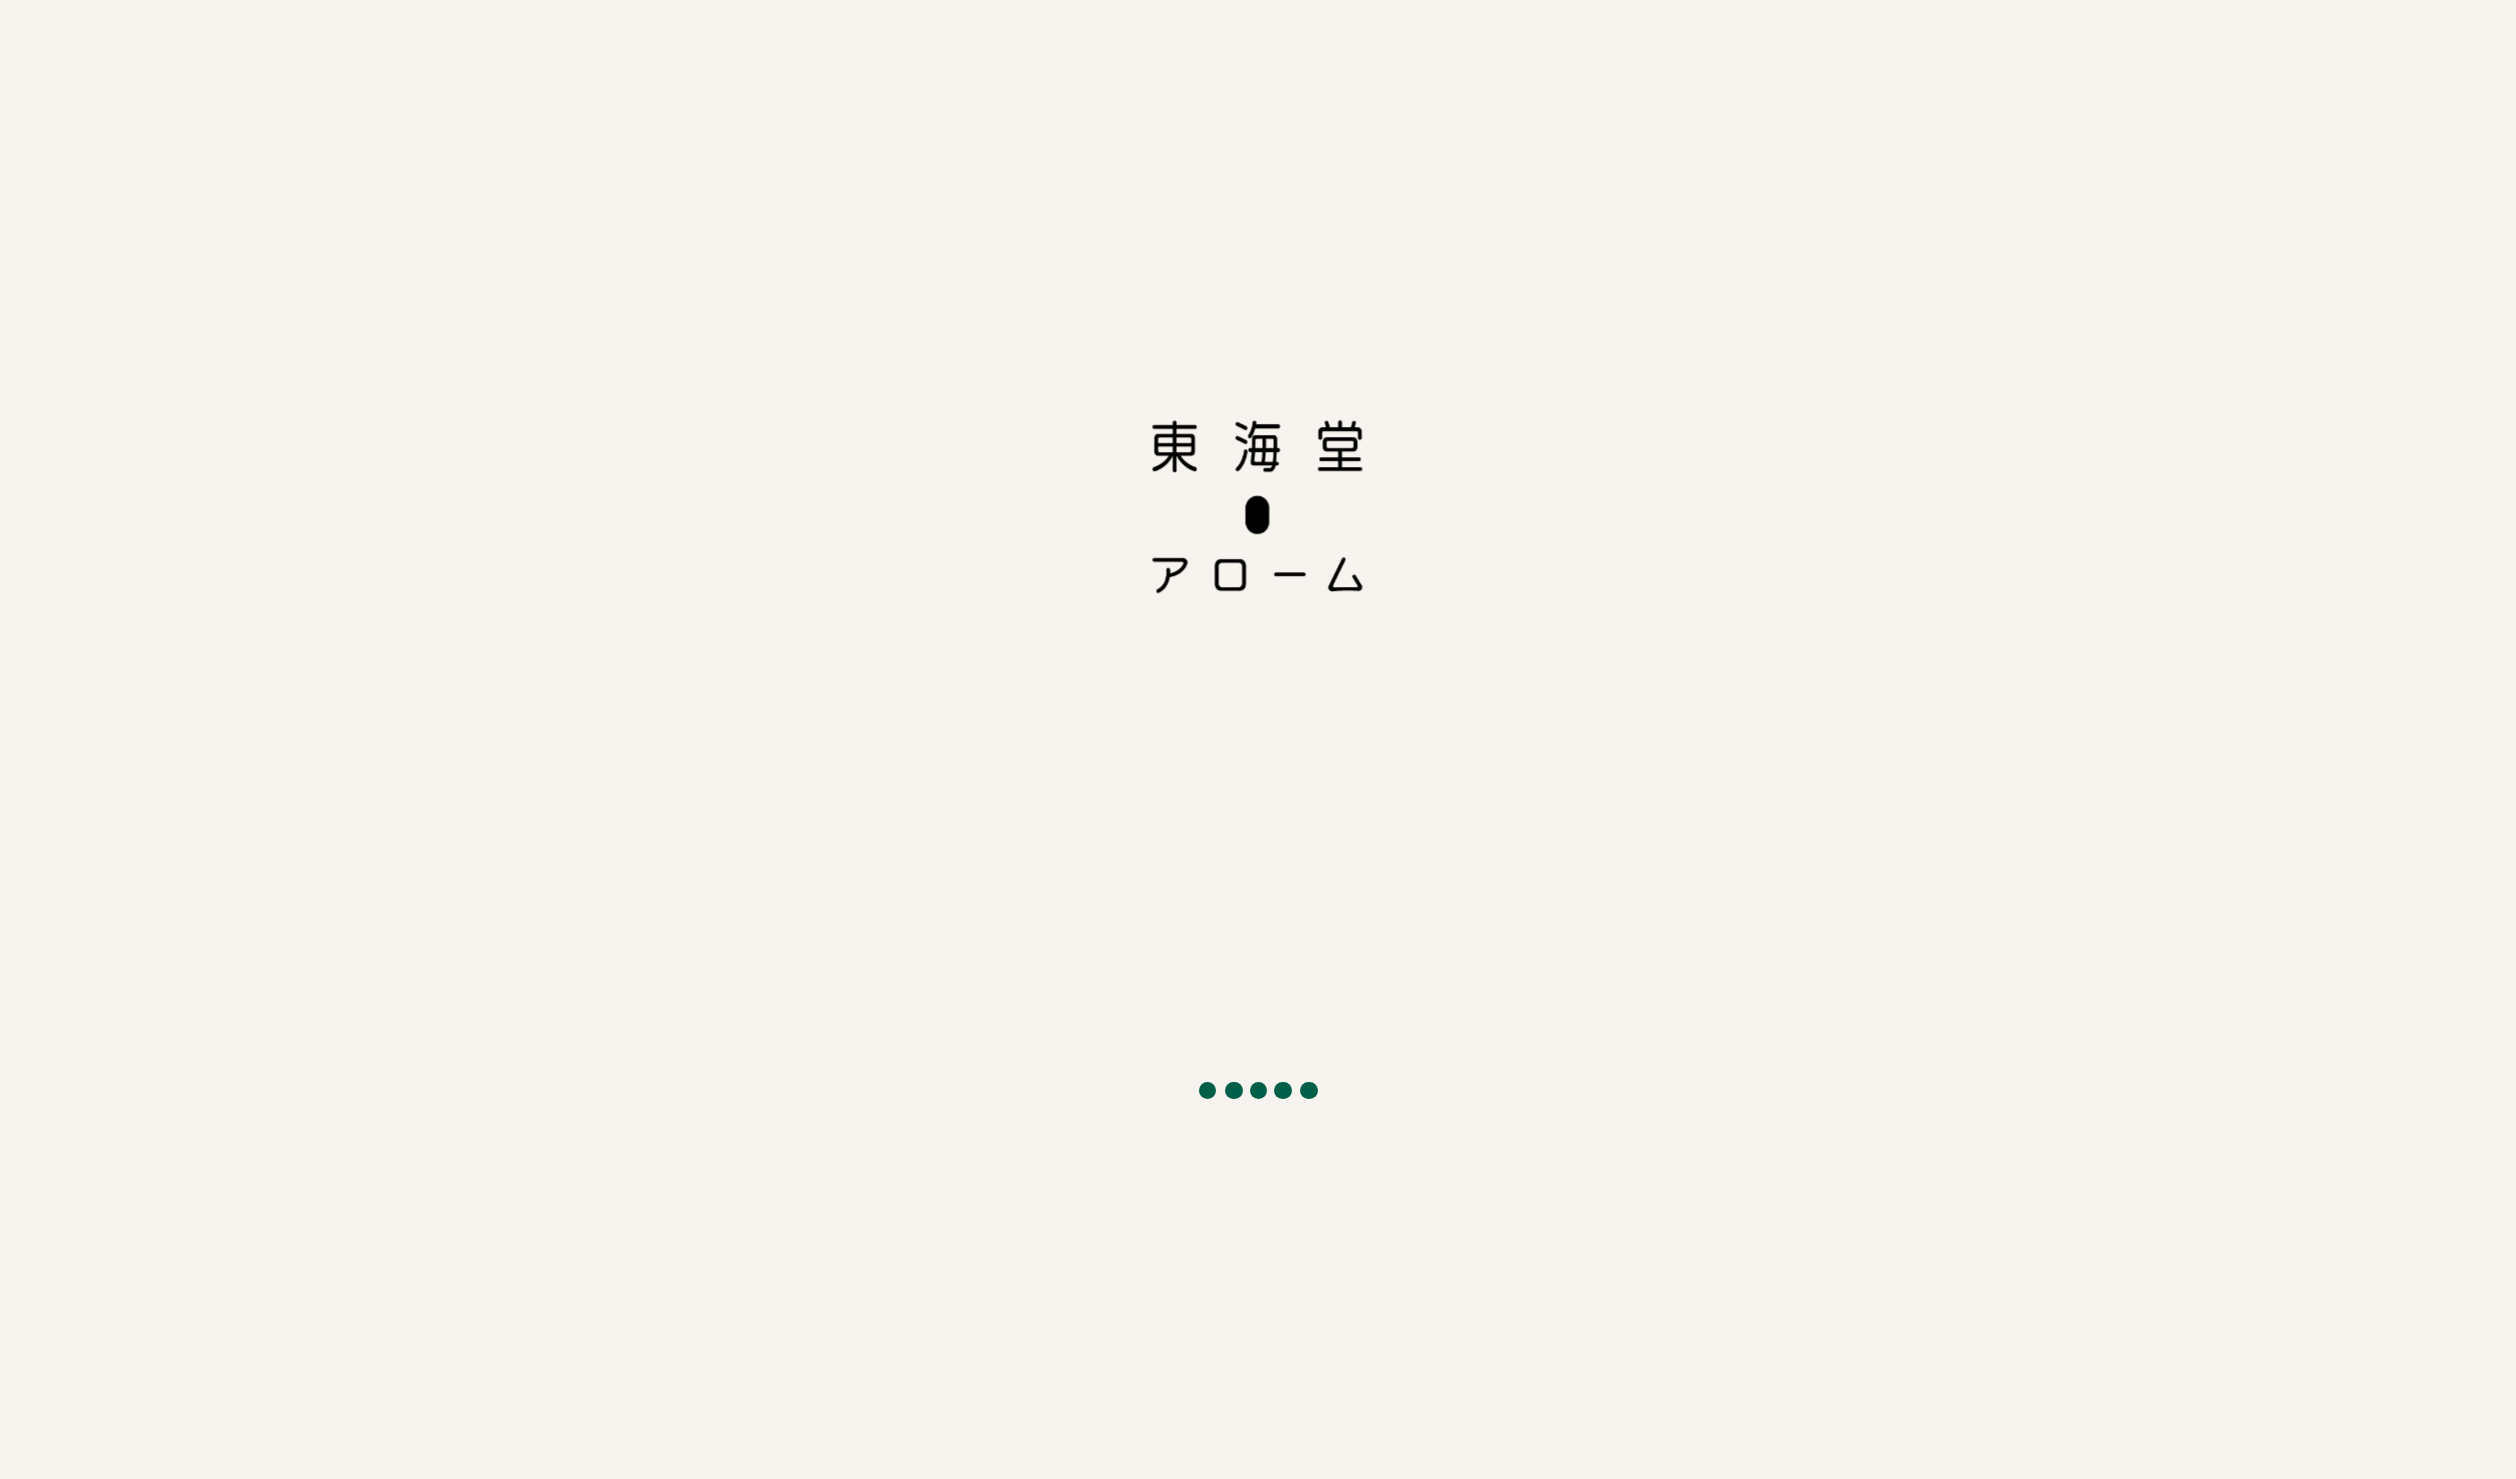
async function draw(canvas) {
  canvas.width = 2516
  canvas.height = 1479
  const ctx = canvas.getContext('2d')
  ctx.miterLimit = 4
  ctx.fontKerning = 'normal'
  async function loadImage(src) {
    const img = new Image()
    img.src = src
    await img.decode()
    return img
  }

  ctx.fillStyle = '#f7f4ef'
  ctx.fillRect(0, 0, 2516, 1479)
  ctx.drawImage(await loadImage('image0.png'), 1152, 420, 211, 174)
  ctx.fillStyle = '#005f49'
  ctx.beginPath()
  ctx.arc(1207.5, 1090.5, 8.5, 0, 2 * Math.PI)
  ctx.fill()
  ctx.beginPath()
  ctx.roundRect(1225, 1082, 18, 17, 8.5)
  ctx.fill()
  ctx.beginPath()
  ctx.arc(1258.5, 1090.5, 8.5, 0, 2 * Math.PI)
  ctx.fill()
  ctx.beginPath()
  ctx.roundRect(1274, 1082, 18, 17, 8.5)
  ctx.fill()
  ctx.beginPath()
  ctx.roundRect(1300, 1082, 18, 17, 8.5)
  ctx.fill()
}

draw(document.querySelector('canvas'))
